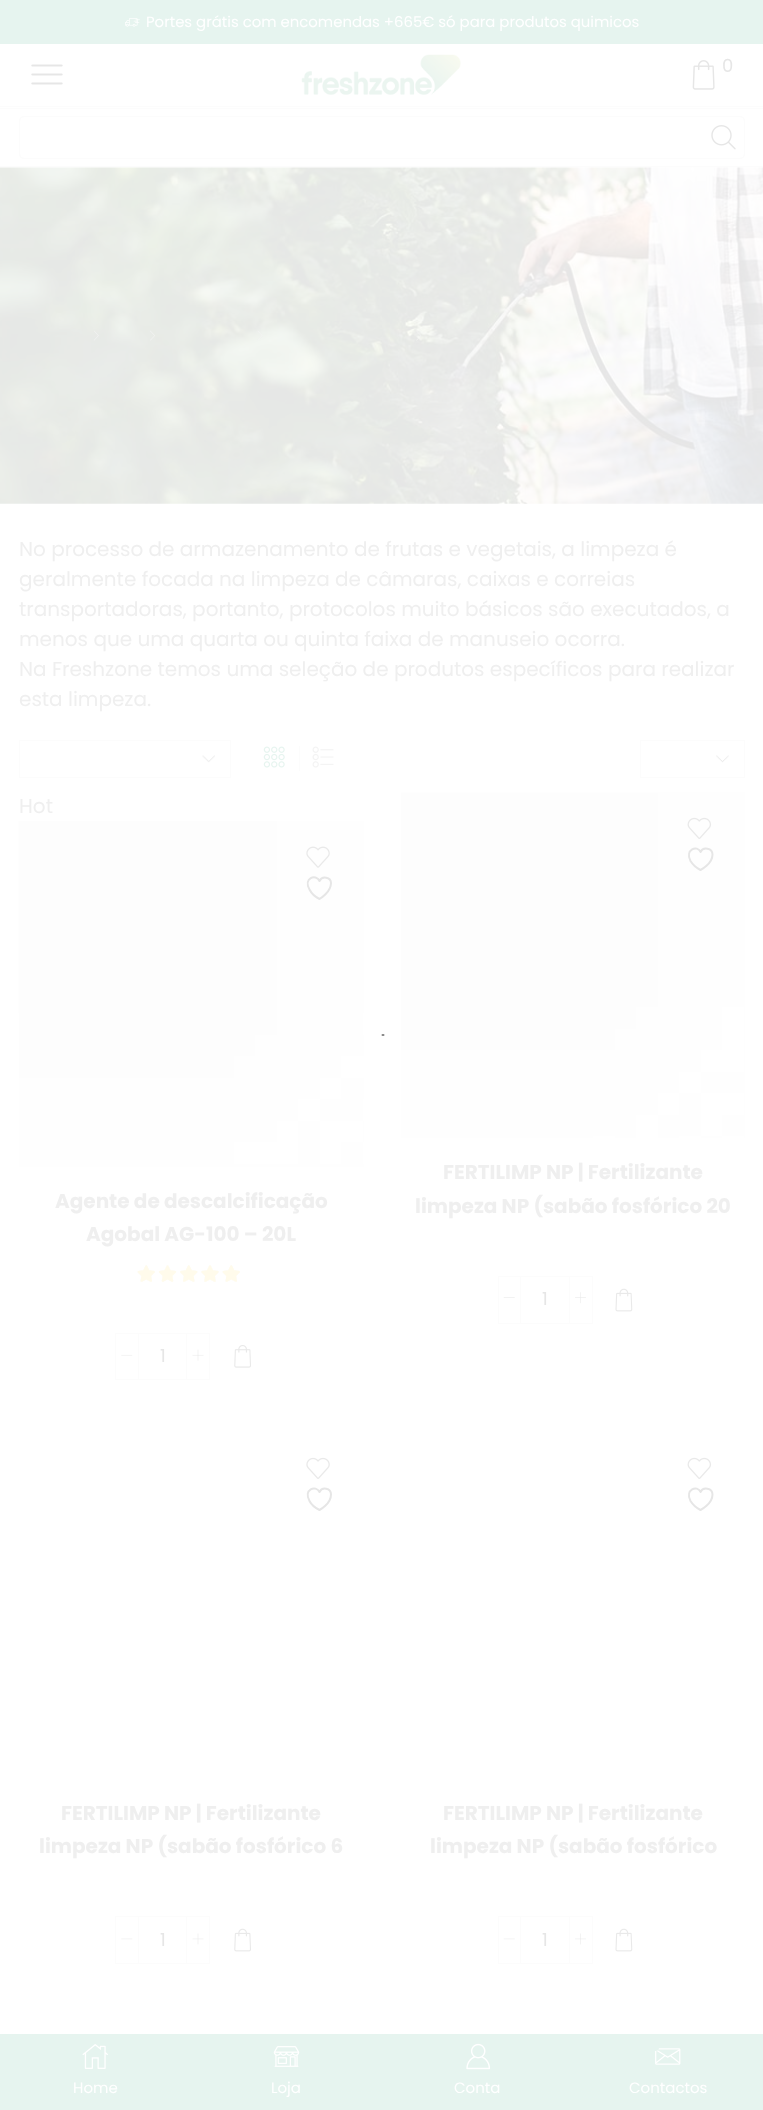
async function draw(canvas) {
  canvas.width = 763
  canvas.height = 2110
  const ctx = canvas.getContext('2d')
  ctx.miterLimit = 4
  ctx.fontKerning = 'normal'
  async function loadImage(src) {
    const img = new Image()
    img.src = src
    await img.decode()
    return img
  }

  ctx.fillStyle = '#fff'
  ctx.fillRect(0, 0, 763, 2110)
  ctx.fillStyle = '#e6f4ef'
  ctx.fillRect(0, 0, 763, 44)
  ctx.drawImage(await loadImage('image0.png'), 125, 18, 15, 9)
  ctx.font = '14.9px Poppins'
  ctx.fillStyle = '#fff'
  ctx.fillText('Portes grátis com encomendas +665€ só para produtos quimicos', 146, 27)
  ctx.fillStyle = '#fcfcfc'
  ctx.fillRect(0, 106, 763, 1)
  ctx.drawImage(await loadImage('image1.png'), 31, 64, 32, 21)
  ctx.drawImage(await loadImage('image2.png'), 301, 54, 160, 42)
  ctx.drawImage(await loadImage('image3.png'), 692, 60, 23, 30)
  ctx.font = '18px Poppins'
  ctx.fillStyle = '#e6e6e6'
  ctx.fillText('0', 722, 72)
  ctx.fillStyle = '#fcfcfc'
  ctx.fillRect(0, 108, 763, 1)
  ctx.fillRect(0, 166, 763, 1)
  ctx.beginPath()
  ctx.roundRect(19.5, 116.5, 725, 42, 4.5)
  ctx.strokeStyle = '#fcfcfc'
  ctx.stroke()
  ctx.drawImage(await loadImage('image4.png'), 711, 125, 25, 25)
  ctx.drawImage(await loadImage('image5.png'), 0, 167, 763, 337)
  ctx.drawImage(await loadImage('image6.png'), 93, 330, 6, 11)
  ctx.drawImage(await loadImage('image7.png'), 150, 330, 5, 11)
  ctx.drawImage(await loadImage('image8.png'), 257, 330, 6, 11)
  ctx.drawImage(await loadImage('image9.png'), 416, 330, 6, 11)
  ctx.font = '20px Poppins'
  ctx.fillStyle = '#efefef'
  ctx.fillText('No processo de armazenamento de frutas e vegetais, a limpeza é', 19, 556)
  ctx.fillText('geralmente focada na limpeza de câmaras, caixas e correias', 19, 586)
  ctx.fillText('transportadoras, portanto, protocolos muito básicos são executados, a', 19, 616)
  ctx.fillText('menos que uma quarta ou quinta faixa de manuseio ocorra.', 19, 646)
  ctx.fillText('Na Freshzone temos uma seleção de produtos específicos para realizar', 19, 676)
  ctx.fillText('esta limpeza.', 19, 706)
  ctx.drawImage(await loadImage('image10.png'), 202, 755, 13, 8)
  ctx.strokeRect(19.5, 740.5, 211, 37)
  ctx.drawImage(await loadImage('image11.png'), 263, 746, 22, 22)
  ctx.fillStyle = '#fcfcfc'
  ctx.fillRect(299, 746, 1, 25)
  ctx.drawImage(await loadImage('image12.png'), 312, 746, 22, 22)
  ctx.drawImage(await loadImage('image13.png'), 716, 755, 13, 8)
  ctx.strokeRect(640.5, 740.5, 104, 37)
  ctx.fillStyle = '#efefef'
  ctx.fillText('Hot', 19, 813)
  ctx.drawImage(await loadImage('image14.png'), 18, 821, 346, 346)
  ctx.drawImage(await loadImage('image15.png'), 306, 846, 24, 22)
  ctx.beginPath()
  ctx.moveTo(331, 883)
  ctx.bezierCurveTo(331, 877, 322, 875.5, 319.5, 881)
  ctx.bezierCurveTo(316, 873.5, 303, 878, 309.5, 889.5)
  ctx.bezierCurveTo(311.5, 893.5, 315.5, 897, 319.5, 899)
  ctx.bezierCurveTo(319.5, 899, 331, 892.5, 331, 883)
  ctx.closePath()
  ctx.strokeStyle = '#e6e6e6'
  ctx.lineWidth = 2
  ctx.lineCap = 'round'
  ctx.lineJoin = 'round'
  ctx.stroke()
  ctx.font = 'bold 20px Poppins'
  ctx.fillText('Agente de descalcificação', 55, 1208)
  ctx.fillText('Agobal AG-100 – 20L', 86, 1241)
  ctx.drawImage(await loadImage('image16.png'), 137, 1265, 103, 17)
  ctx.drawImage(await loadImage('image17.png'), 137, 1265, 103, 17)
  ctx.strokeStyle = '#fcfcfc'
  ctx.lineWidth = 1
  ctx.lineJoin = 'miter'
  ctx.strokeRect(115.5, 1333.5, 23, 46)
  ctx.drawImage(await loadImage('image18.png'), 121, 1354, 12, 2)
  ctx.fillStyle = '#fcfcfc'
  ctx.fillRect(139, 1333, 47, 1)
  ctx.fillRect(139, 1379, 47, 1)
  ctx.font = '18px Poppins'
  ctx.fillStyle = '#e6e6e6'
  ctx.fillText('1', 160, 1362)
  ctx.strokeRect(186.5, 1333.5, 23, 46)
  ctx.drawImage(await loadImage('image19.png'), 192, 1349, 12, 12)
  ctx.drawImage(await loadImage('image20.png'), 234, 1345, 17, 23)
  ctx.drawImage(await loadImage('image21.png'), 401, 792, 344, 346)
  ctx.drawImage(await loadImage('image22.png'), 687, 817, 25, 22)
  ctx.beginPath()
  ctx.moveTo(712.5, 854.5)
  ctx.bezierCurveTo(712.5, 848, 703, 846.5, 700.5, 852)
  ctx.bezierCurveTo(697.5, 844.5, 684.5, 849.5, 690.5, 861)
  ctx.bezierCurveTo(693, 865, 696.5, 868, 700.5, 870)
  ctx.bezierCurveTo(700.5, 870, 712.5, 864, 712.5, 854.5)
  ctx.closePath()
  ctx.strokeStyle = '#e6e6e6'
  ctx.lineWidth = 2
  ctx.lineJoin = 'round'
  ctx.stroke()
  ctx.font = 'bold 20px Poppins'
  ctx.fillStyle = '#efefef'
  ctx.fillText('FERTILIMP NP | Fertilizante', 443, 1179)
  ctx.fillText('limpeza NP (sabão fosfórico 20', 415, 1213)
  ctx.strokeStyle = '#fcfcfc'
  ctx.lineWidth = 1
  ctx.lineJoin = 'miter'
  ctx.strokeRect(498.5, 1276.5, 22, 47)
  ctx.drawImage(await loadImage('image23.png'), 503, 1297, 12, 1)
  ctx.fillStyle = '#fcfcfc'
  ctx.fillRect(521, 1276, 48, 1)
  ctx.fillRect(521, 1323, 48, 1)
  ctx.font = '18px Poppins'
  ctx.fillStyle = '#e6e6e6'
  ctx.fillText('1', 542, 1305)
  ctx.strokeRect(569.5, 1276.5, 23, 47)
  ctx.drawImage(await loadImage('image24.png'), 575, 1292, 11, 12)
  ctx.drawImage(await loadImage('image25.png'), 615, 1288, 18, 24)
  ctx.drawImage(await loadImage('image26.png'), 306, 1457, 24, 22)
  ctx.beginPath()
  ctx.moveTo(331, 1494.5)
  ctx.bezierCurveTo(331, 1488, 322, 1486.5, 319.5, 1492)
  ctx.bezierCurveTo(316, 1484.5, 303, 1489.5, 309.5, 1501)
  ctx.bezierCurveTo(311.5, 1505, 315.5, 1508, 319.5, 1510)
  ctx.bezierCurveTo(319.5, 1510, 331, 1504, 331, 1494.5)
  ctx.closePath()
  ctx.strokeStyle = '#e6e6e6'
  ctx.lineWidth = 2
  ctx.lineJoin = 'round'
  ctx.stroke()
  ctx.font = 'bold 20px Poppins'
  ctx.fillStyle = '#efefef'
  ctx.fillText('FERTILIMP NP | Fertilizante', 61, 1820)
  ctx.fillText('limpeza NP (sabão fosfórico 6', 39, 1853)
  ctx.strokeStyle = '#fcfcfc'
  ctx.lineWidth = 1
  ctx.lineJoin = 'miter'
  ctx.strokeRect(115.5, 1916.5, 23, 47)
  ctx.drawImage(await loadImage('image27.png'), 121, 1938, 12, 2)
  ctx.fillStyle = '#fcfcfc'
  ctx.fillRect(139, 1916, 47, 1)
  ctx.fillRect(139, 1963, 47, 1)
  ctx.font = '18px Poppins'
  ctx.fillStyle = '#e6e6e6'
  ctx.fillText('1', 160, 1946)
  ctx.strokeRect(186.5, 1916.5, 23, 47)
  ctx.drawImage(await loadImage('image28.png'), 192, 1933, 12, 12)
  ctx.drawImage(await loadImage('image29.png'), 234, 1928, 17, 24)
  ctx.drawImage(await loadImage('image30.png'), 687, 1457, 25, 22)
  ctx.beginPath()
  ctx.moveTo(712.5, 1494.5)
  ctx.bezierCurveTo(712.5, 1488, 703, 1486.5, 700.5, 1492)
  ctx.bezierCurveTo(697.5, 1484.5, 684.5, 1489.5, 690.5, 1501)
  ctx.bezierCurveTo(693, 1505, 696.5, 1508, 700.5, 1510)
  ctx.bezierCurveTo(700.5, 1510, 712.5, 1504, 712.5, 1494.5)
  ctx.closePath()
  ctx.strokeStyle = '#e6e6e6'
  ctx.lineWidth = 2
  ctx.lineJoin = 'round'
  ctx.stroke()
  ctx.font = 'bold 20px Poppins'
  ctx.fillStyle = '#efefef'
  ctx.fillText('FERTILIMP NP | Fertilizante', 443, 1820)
  ctx.fillText('limpeza NP (sabão fosfórico', 430, 1853)
  ctx.strokeStyle = '#fcfcfc'
  ctx.lineWidth = 1
  ctx.lineJoin = 'miter'
  ctx.strokeRect(498.5, 1916.5, 22, 47)
  ctx.drawImage(await loadImage('image31.png'), 503, 1938, 12, 2)
  ctx.fillStyle = '#fcfcfc'
  ctx.fillRect(521, 1916, 48, 1)
  ctx.fillRect(521, 1963, 48, 1)
  ctx.font = '18px Poppins'
  ctx.fillStyle = '#e6e6e6'
  ctx.fillText('1', 542, 1946)
  ctx.strokeRect(569.5, 1916.5, 23, 47)
  ctx.drawImage(await loadImage('image32.png'), 575, 1933, 11, 12)
  ctx.drawImage(await loadImage('image25.png'), 615, 1928, 18, 24)
  ctx.fillStyle = '#e6f4ef'
  ctx.fillRect(0, 2034, 763, 76)
  ctx.drawImage(await loadImage('image33.png'), 82, 2044, 26, 25)
  ctx.font = '15px Poppins'
  ctx.fillStyle = '#fff'
  ctx.fillText('Home', 73, 2093)
  ctx.drawImage(await loadImage('image34.png'), 273, 2046, 27, 21)
  ctx.fillText('Loja', 271, 2093)
  ctx.drawImage(await loadImage('image35.png'), 466, 2043, 25, 27)
  ctx.fillText('Conta', 454, 2093)
  ctx.drawImage(await loadImage('image36.png'), 655, 2048, 26, 17)
  ctx.fillStyle = '#e6f4ef'
  ctx.beginPath()
  ctx.roundRect(651, 2044, 8, 7, 3.5)
  ctx.fill()
  ctx.fillStyle = '#fff'
  ctx.fillText('Contactos', 629, 2093)
  ctx.beginPath()
  ctx.moveTo(382.5, 1035)
  ctx.lineTo(383.5, 1035)
  ctx.strokeStyle = '#888'
  ctx.lineWidth = 2
  ctx.stroke()
}

draw(document.querySelector('canvas'))
